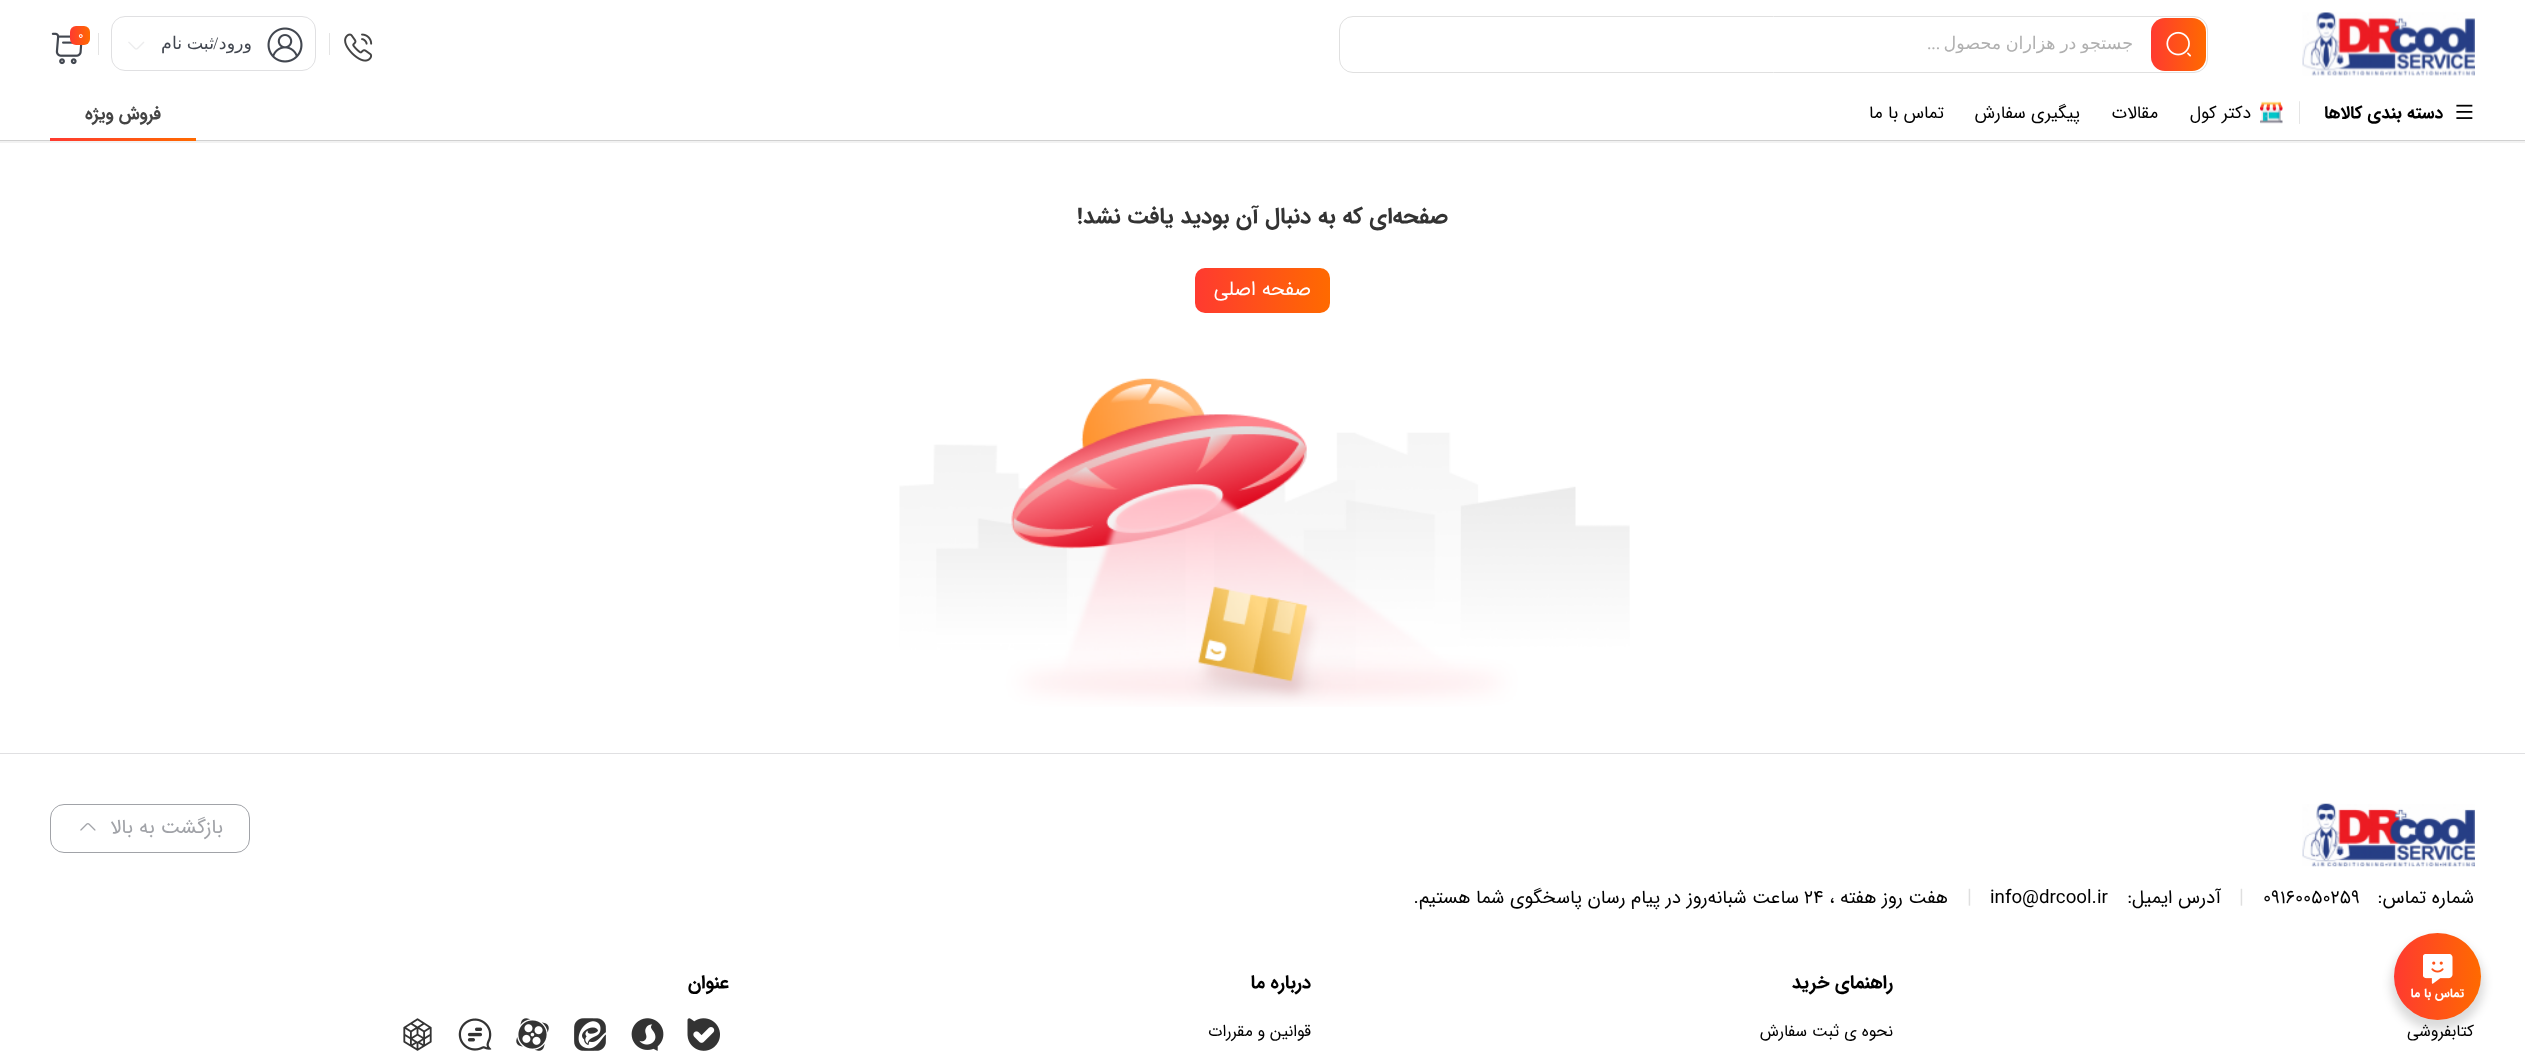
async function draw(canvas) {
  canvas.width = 2525
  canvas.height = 1055
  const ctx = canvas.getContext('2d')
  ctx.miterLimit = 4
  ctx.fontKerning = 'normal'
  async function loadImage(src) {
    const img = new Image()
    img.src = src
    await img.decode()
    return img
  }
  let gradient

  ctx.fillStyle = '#fff'
  ctx.fillRect(0, 0, 2525, 1055)
  ctx.drawImage(await loadImage('image0.png'), 2302, 12, 173, 64)
  ctx.beginPath()
  ctx.roundRect(1339.5, 16.5, 868, 56, 13.5)
  ctx.strokeStyle = '#e0e0e0'
  ctx.stroke()
  gradient = ctx.createLinearGradient(2151, 44, 2206, 44)
  gradient.addColorStop(0, '#ff3a30')
  gradient.addColorStop(1, '#ff6a00')
  ctx.fillStyle = gradient
  ctx.beginPath()
  ctx.roundRect(2151, 18, 55, 53, 14)
  ctx.fill()
  ctx.drawImage(await loadImage('image1.png'), 2166, 31, 25, 26)
  ctx.wordSpacing = '-1px'
  ctx.direction = 'rtl'
  ctx.font = '17.5px DejaVu Sans'
  ctx.fillStyle = '#b0b0b0'
  ctx.fillText('جستجو در هزاران محصول', 2133, 49)
  ctx.wordSpacing = '0px'
  ctx.font = '17.5px Liberation Serif'
  ctx.fillText('...', 1940, 49)
  ctx.drawImage(await loadImage('image2.png'), 344, 33, 29, 29)
  ctx.fillStyle = '#e4e4e4'
  ctx.fillRect(329, 33, 1, 22)
  ctx.beginPath()
  ctx.roundRect(111.5, 16.5, 204, 54, 13.5)
  ctx.strokeStyle = '#e0e0e2'
  ctx.stroke()
  ctx.drawImage(await loadImage('image3.png'), 267, 27, 36, 36)
  ctx.font = '17.5px DejaVu Sans'
  ctx.fillStyle = '#424750'
  ctx.fillText('ورود', 252, 49)
  ctx.font = '17.5px Liberation Serif'
  ctx.fillText('/', 218, 49)
  ctx.wordSpacing = '-1px'
  ctx.font = '17.5px DejaVu Sans'
  ctx.fillText('ثبت نام', 214, 49)
  ctx.drawImage(await loadImage('image4.png'), 128, 41, 17, 9)
  ctx.fillStyle = '#e4e4e4'
  ctx.fillRect(98, 33, 1, 22)
  ctx.drawImage(await loadImage('image5.png'), 51, 32, 32, 33)
  gradient = ctx.createLinearGradient(70, 36, 90, 36)
  gradient.addColorStop(0, '#ff3a30')
  gradient.addColorStop(1, '#ff6a00')
  ctx.fillStyle = gradient
  ctx.beginPath()
  ctx.roundRect(70, 26, 20, 19, 6)
  ctx.fill()
  ctx.wordSpacing = '0px'
  ctx.direction = 'ltr'
  ctx.font = '12.5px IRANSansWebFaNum'
  ctx.fillStyle = '#fff'
  ctx.fillText('0', 78, 39)
  ctx.fillStyle = '#f2f2f2'
  ctx.fillRect(0, 141, 2525, 2)
  ctx.fillStyle = '#d0d0d0'
  ctx.fillRect(0, 140, 2525, 1)
  ctx.drawImage(await loadImage('image6.png'), 2456, 104, 17, 15)
  ctx.direction = 'rtl'
  ctx.font = 'bold 17.5px IRANSansWebFaNum'
  ctx.fillStyle = '#000'
  ctx.fillText('دسته بندی کالاها', 2443, 118)
  ctx.fillStyle = '#e5e5e5'
  ctx.beginPath()
  ctx.roundRect(2299, 101, 1, 23, 0.5)
  ctx.fill()
  ctx.drawImage(await loadImage('image7.png'), 2260, 101, 23, 23)
  ctx.font = '17.5px IRANSansWebFaNum'
  ctx.fillStyle = '#000'
  ctx.fillText('دکتر کول', 2251, 118)
  ctx.fillText('مقالات', 2158, 118)
  ctx.fillText('پیگیری سفارش', 2080, 118)
  ctx.fillText('تماس با ما', 1944, 118)
  ctx.font = 'bold 17.5px IRANSansWebFaNum'
  ctx.fillStyle = '#444'
  ctx.fillText('فروش ویژه', 161, 119)
  gradient = ctx.createLinearGradient(50, 139, 196, 139)
  gradient.addColorStop(0, '#ff3a30')
  gradient.addColorStop(1, '#ff6a00')
  ctx.fillStyle = gradient
  ctx.fillRect(50, 138, 146, 3)
  ctx.font = 'bold 22.5px IRANSansWebFaNum'
  ctx.fillStyle = '#333'
  ctx.fillText('صفحه‌ای که به دنبال آن بودید یافت نشد!', 1448, 223)
  gradient = ctx.createLinearGradient(1195, 290, 1330, 290)
  gradient.addColorStop(0, '#ff3a30')
  gradient.addColorStop(1, '#ff6a00')
  ctx.fillStyle = gradient
  ctx.beginPath()
  ctx.roundRect(1195, 268, 135, 45, 10)
  ctx.fill()
  ctx.font = '20px IRANSansWebFaNum'
  ctx.fillStyle = '#fff'
  ctx.fillText('صفحه اصلی', 1311, 295)
  ctx.drawImage(await loadImage('image8.png'), 899, 378, 731, 329)
  ctx.fillStyle = '#e0e0e2'
  ctx.fillRect(0, 753, 2525, 1)
  ctx.drawImage(await loadImage('image9.png'), 2302, 803, 173, 64)
  ctx.beginPath()
  ctx.roundRect(50.5, 804.5, 199, 48, 13.5)
  ctx.strokeStyle = '#a1a3a8'
  ctx.stroke()
  ctx.fillStyle = '#a1a3a8'
  ctx.fillText('بازگشت به بالا', 223, 833)
  ctx.drawImage(await loadImage('image10.png'), 80, 823, 16, 8)
  ctx.font = '18.75px IRANSansWebFaNum'
  ctx.fillStyle = '#000'
  ctx.fillText('شماره تماس:', 2474, 903)
  ctx.direction = 'ltr'
  ctx.fillText('09160050259', 2263, 903)
  ctx.font = '20px IRANSansWebFaNum'
  ctx.fillStyle = '#dfdfdf'
  ctx.fillText('|', 2239, 903)
  ctx.direction = 'rtl'
  ctx.font = '18.75px IRANSansWebFaNum'
  ctx.fillStyle = '#000'
  ctx.fillText('آدرس ایمیل:', 2221, 903)
  ctx.direction = 'ltr'
  ctx.fillText('info@drcool.ir', 1990, 903)
  ctx.font = '20px IRANSansWebFaNum'
  ctx.fillStyle = '#dfdfdf'
  ctx.fillText('|', 1967, 903)
  ctx.direction = 'rtl'
  ctx.font = '18.75px IRANSansWebFaNum'
  ctx.fillStyle = '#000'
  ctx.fillText('هفت روز هفته ،', 1948, 903)
  ctx.direction = 'ltr'
  ctx.fillText('24', 1804, 903)
  ctx.direction = 'rtl'
  ctx.fillText('ساعت شبانه‌روز', 1799, 903)
  ctx.fillText('در پیام رسان پاسخگوی شما هستیم.', 1681, 903)
  ctx.font = '16.25px IRANSansWebFaNum'
  ctx.fillText('کتابفروشی', 2474, 1036)
  ctx.font = 'bold 18.75px IRANSansWebFaNum'
  ctx.fillText('راهنمای خرید', 1893, 988)
  ctx.font = '16.25px IRANSansWebFaNum'
  ctx.fillText('نحوه ی ثبت سفارش', 1893, 1036)
  ctx.font = 'bold 18.75px IRANSansWebFaNum'
  ctx.fillText('درباره ما', 1311, 988)
  ctx.font = '16.25px IRANSansWebFaNum'
  ctx.fillText('قوانین و مقررات', 1311, 1036)
  ctx.font = 'bold 18.75px IRANSansWebFaNum'
  ctx.fillText('عنوان', 729, 988)
  ctx.drawImage(await loadImage('image11.png'), 687, 1018, 33, 33)
  ctx.drawImage(await loadImage('image12.png'), 631, 1018, 33, 33)
  ctx.drawImage(await loadImage('image13.png'), 574, 1018, 32, 33)
  ctx.drawImage(await loadImage('image14.png'), 516, 1018, 33, 33)
  ctx.drawImage(await loadImage('image15.png'), 458, 1018, 34, 33)
  ctx.drawImage(await loadImage('image16.png'), 403, 1018, 29, 33)
  ctx.fillStyle = '#00000024'
  ctx.filter = 'blur(5px)'
  ctx.beginPath()
  ctx.roundRect(2391, 938, 93, 92, 46)
  ctx.fill()
  ctx.filter = 'none'
  gradient = ctx.createLinearGradient(2394, 976, 2481, 976)
  gradient.addColorStop(0, '#ff3a30')
  gradient.addColorStop(1, '#ff6a00')
  ctx.fillStyle = gradient
  ctx.beginPath()
  ctx.arc(2437.5, 976.5, 43.5, 0, 2 * Math.PI)
  ctx.fill()
  ctx.drawImage(await loadImage('image17.png'), 2423, 954, 30, 30)
  ctx.font = 'bold 12.5px IRANSansWebFaNum'
  ctx.fillStyle = '#fff'
  ctx.fillText('تماس با ما', 2464, 997)
}

draw(document.querySelector('canvas'))
